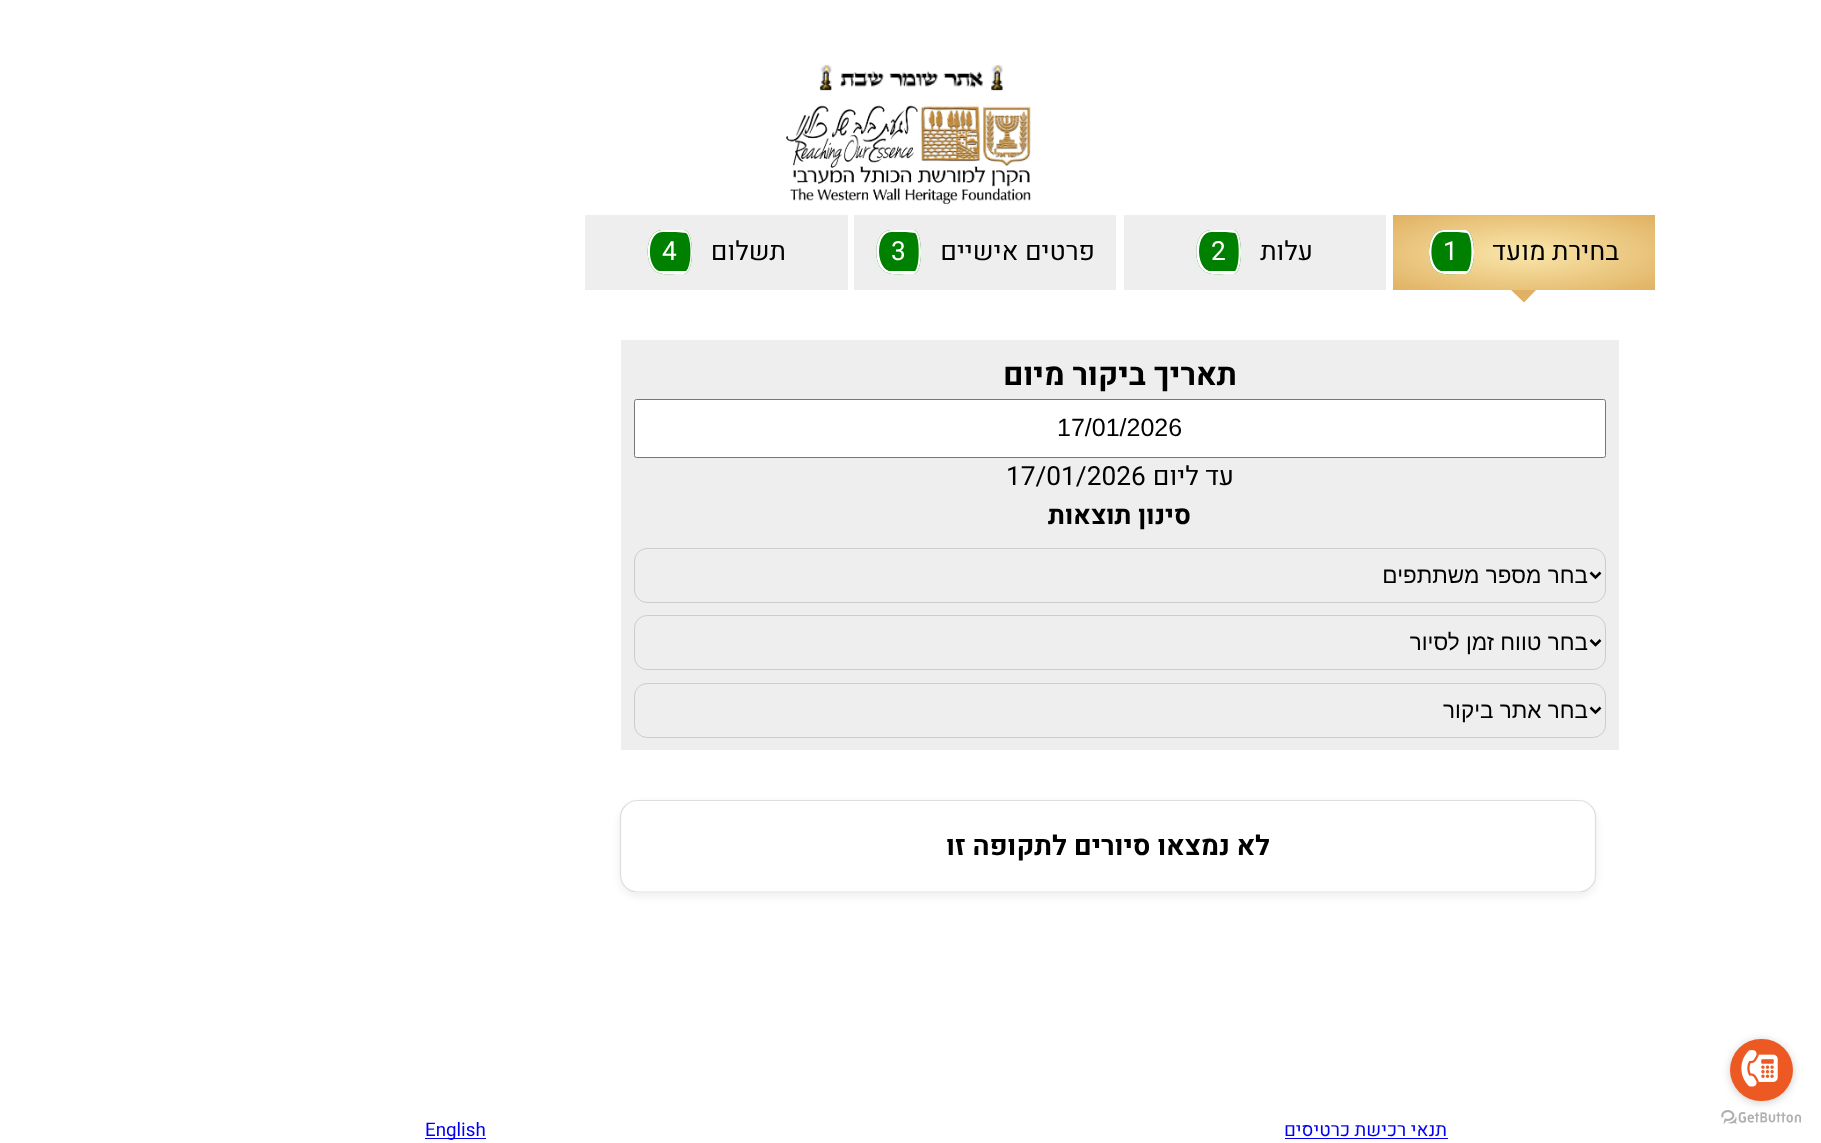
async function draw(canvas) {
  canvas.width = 1821
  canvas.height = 1143
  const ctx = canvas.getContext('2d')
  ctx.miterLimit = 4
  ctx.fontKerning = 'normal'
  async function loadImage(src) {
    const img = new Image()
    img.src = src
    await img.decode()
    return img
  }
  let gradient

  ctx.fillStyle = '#fff'
  ctx.fillRect(0, 0, 1821, 1143)
  ctx.drawImage(await loadImage('image1.png'), 1721, 1110, 80, 14)
  ctx.fillStyle = '#88888866'
  ctx.filter = 'blur(4.5px)'
  ctx.beginPath()
  ctx.roundRect(1730, 1040, 63, 63, 31.5)
  ctx.fill()
  ctx.filter = 'none'
  ctx.fillStyle = '#ec5923'
  ctx.beginPath()
  ctx.roundRect(1730, 1039, 63, 62, 31)
  ctx.fill()
  ctx.drawImage(await loadImage('image0.png'), 1741, 1050, 37, 37)
  ctx.drawImage(await loadImage('image2.png'), 819, 64, 184, 27)
  ctx.drawImage(await loadImage('image3.png'), 786, 105, 245, 99)
  gradient = ctx.createRadialGradient(1524, 887.89, 0, 1524, 887.89, 186)
  gradient.addColorStop(0, '#fae7ac')
  gradient.addColorStop(1, '#e0b162')
  ctx.fillStyle = gradient
  ctx.beginPath()
  ctx.rect(1393, 215, 262, 75)
  ctx.save()
  ctx.clip()
  ctx.scale(1, 53 / 186)
  ctx.fillRect(0, 0, 1821, 4012)
  ctx.restore()
  ctx.direction = 'rtl'
  ctx.font = '26.25px Heebo'
  ctx.fillStyle = '#000'
  ctx.fillText('בחירת מועד', 1619, 260)
  ctx.fillStyle = '#008000'
  ctx.beginPath()
  ctx.moveTo(1443, 230)
  ctx.lineTo(1458, 230)
  ctx.lineTo(1458, 274)
  ctx.bezierCurveTo(1453, 274, 1445, 275, 1440, 273)
  ctx.bezierCurveTo(1424, 268, 1426, 230, 1443, 230)
  ctx.closePath()
  ctx.fill()
  ctx.fillStyle = '#fff'
  ctx.beginPath()
  ctx.moveTo(1443, 230)
  ctx.lineTo(1458, 230)
  ctx.lineTo(1458, 274)
  ctx.bezierCurveTo(1453, 274, 1445, 275, 1440, 273)
  ctx.bezierCurveTo(1424, 268, 1426, 230, 1443, 230)
  ctx.closePath()
  ctx.moveTo(1443, 232)
  ctx.lineTo(1458, 232)
  ctx.lineTo(1458, 271)
  ctx.lineTo(1441, 271)
  ctx.bezierCurveTo(1427, 266, 1429, 232, 1443, 232)
  ctx.closePath()
  ctx.fill('evenodd')
  ctx.direction = 'ltr'
  ctx.fillText('1', 1443, 260)
  ctx.fillStyle = '#008000'
  ctx.beginPath()
  ctx.moveTo(1458, 230)
  ctx.lineTo(1466, 230)
  ctx.bezierCurveTo(1470, 230, 1474, 240, 1474, 252)
  ctx.bezierCurveTo(1474, 264, 1470, 274, 1466, 274)
  ctx.lineTo(1458, 274)
  ctx.closePath()
  ctx.fill()
  ctx.fillStyle = '#fff'
  ctx.beginPath()
  ctx.moveTo(1458, 230)
  ctx.lineTo(1466, 230)
  ctx.bezierCurveTo(1470, 230, 1474, 240, 1474, 252)
  ctx.bezierCurveTo(1474, 264, 1470, 274, 1466, 274)
  ctx.lineTo(1458, 274)
  ctx.closePath()
  ctx.moveTo(1458, 232)
  ctx.lineTo(1467, 233)
  ctx.bezierCurveTo(1473, 237, 1473, 267, 1467, 271)
  ctx.lineTo(1458, 271)
  ctx.closePath()
  ctx.fill('evenodd')
  ctx.fillStyle = '#e0b162'
  ctx.beginPath()
  ctx.moveTo(1511, 290)
  ctx.lineTo(1536, 290)
  ctx.lineTo(1524, 302.5)
  ctx.closePath()
  ctx.fill()
  ctx.fillStyle = '#eee'
  ctx.fillRect(1124, 215, 262, 75)
  ctx.direction = 'rtl'
  ctx.fillStyle = '#000'
  ctx.fillText('עלות', 1313, 260)
  ctx.fillStyle = '#008000'
  ctx.beginPath()
  ctx.moveTo(1211, 230)
  ctx.lineTo(1226, 230)
  ctx.lineTo(1226, 274)
  ctx.bezierCurveTo(1221, 274, 1213, 275, 1208, 273)
  ctx.bezierCurveTo(1191, 268, 1193, 230, 1211, 230)
  ctx.closePath()
  ctx.fill()
  ctx.fillStyle = '#fff'
  ctx.beginPath()
  ctx.moveTo(1211, 230)
  ctx.lineTo(1226, 230)
  ctx.lineTo(1226, 274)
  ctx.bezierCurveTo(1221, 274, 1213, 275, 1208, 273)
  ctx.bezierCurveTo(1191, 268, 1193, 230, 1211, 230)
  ctx.closePath()
  ctx.moveTo(1211, 232)
  ctx.lineTo(1226, 232)
  ctx.lineTo(1226, 271)
  ctx.lineTo(1209, 271)
  ctx.bezierCurveTo(1195, 266, 1196, 232, 1211, 232)
  ctx.closePath()
  ctx.fill('evenodd')
  ctx.direction = 'ltr'
  ctx.fillText('2', 1211, 260)
  ctx.fillStyle = '#008000'
  ctx.beginPath()
  ctx.moveTo(1226, 230)
  ctx.lineTo(1234, 230)
  ctx.bezierCurveTo(1238, 230, 1241, 240, 1241, 252)
  ctx.bezierCurveTo(1241, 264, 1238, 274, 1234, 274)
  ctx.lineTo(1226, 274)
  ctx.closePath()
  ctx.fill()
  ctx.fillStyle = '#fff'
  ctx.beginPath()
  ctx.moveTo(1226, 230)
  ctx.lineTo(1234, 230)
  ctx.bezierCurveTo(1238, 230, 1241, 240, 1241, 252)
  ctx.bezierCurveTo(1241, 264, 1238, 274, 1234, 274)
  ctx.lineTo(1226, 274)
  ctx.closePath()
  ctx.moveTo(1226, 232)
  ctx.lineTo(1235, 233)
  ctx.bezierCurveTo(1240, 237, 1240, 267, 1235, 271)
  ctx.lineTo(1226, 271)
  ctx.closePath()
  ctx.fill('evenodd')
  ctx.fillStyle = '#eee'
  ctx.fillRect(854, 215, 262, 75)
  ctx.direction = 'rtl'
  ctx.fillStyle = '#000'
  ctx.fillText('פרטים אישיים', 1095, 260)
  ctx.fillStyle = '#008000'
  ctx.beginPath()
  ctx.moveTo(891, 230)
  ctx.lineTo(906, 230)
  ctx.lineTo(906, 274)
  ctx.bezierCurveTo(901, 274, 893, 275, 888, 273)
  ctx.bezierCurveTo(871, 268, 873, 230, 891, 230)
  ctx.closePath()
  ctx.fill()
  ctx.fillStyle = '#fff'
  ctx.beginPath()
  ctx.moveTo(891, 230)
  ctx.lineTo(906, 230)
  ctx.lineTo(906, 274)
  ctx.bezierCurveTo(901, 274, 893, 275, 888, 273)
  ctx.bezierCurveTo(871, 268, 873, 230, 891, 230)
  ctx.closePath()
  ctx.moveTo(891, 232)
  ctx.lineTo(906, 232)
  ctx.lineTo(906, 271)
  ctx.lineTo(889, 271)
  ctx.bezierCurveTo(875, 266, 876, 232, 891, 232)
  ctx.closePath()
  ctx.fill('evenodd')
  ctx.direction = 'ltr'
  ctx.fillText('3', 891, 260)
  ctx.fillStyle = '#008000'
  ctx.beginPath()
  ctx.moveTo(906, 230)
  ctx.lineTo(914, 230)
  ctx.bezierCurveTo(918, 230, 921, 240, 921, 252)
  ctx.bezierCurveTo(921, 264, 918, 274, 914, 274)
  ctx.lineTo(906, 274)
  ctx.closePath()
  ctx.fill()
  ctx.fillStyle = '#fff'
  ctx.beginPath()
  ctx.moveTo(906, 230)
  ctx.lineTo(914, 230)
  ctx.bezierCurveTo(918, 230, 921, 240, 921, 252)
  ctx.bezierCurveTo(921, 264, 918, 274, 914, 274)
  ctx.lineTo(906, 274)
  ctx.closePath()
  ctx.moveTo(906, 232)
  ctx.lineTo(915, 233)
  ctx.bezierCurveTo(920, 237, 920, 267, 915, 271)
  ctx.lineTo(906, 271)
  ctx.closePath()
  ctx.fill('evenodd')
  ctx.fillStyle = '#eee'
  ctx.fillRect(585, 215, 263, 75)
  ctx.direction = 'rtl'
  ctx.fillStyle = '#000'
  ctx.fillText('תשלום', 786, 260)
  ctx.fillStyle = '#008000'
  ctx.beginPath()
  ctx.moveTo(662, 230)
  ctx.lineTo(676, 230)
  ctx.lineTo(676, 274)
  ctx.bezierCurveTo(671, 274, 664, 275, 659, 273)
  ctx.bezierCurveTo(643, 268, 644, 230, 662, 230)
  ctx.closePath()
  ctx.fill()
  ctx.fillStyle = '#fff'
  ctx.beginPath()
  ctx.moveTo(662, 230)
  ctx.lineTo(676, 230)
  ctx.lineTo(676, 274)
  ctx.bezierCurveTo(671, 274, 664, 275, 659, 273)
  ctx.bezierCurveTo(643, 268, 644, 230, 662, 230)
  ctx.closePath()
  ctx.moveTo(662, 232)
  ctx.lineTo(676, 232)
  ctx.lineTo(676, 271)
  ctx.lineTo(659, 271)
  ctx.bezierCurveTo(646, 266, 647, 232, 662, 232)
  ctx.closePath()
  ctx.fill('evenodd')
  ctx.fillStyle = '#008000'
  ctx.beginPath()
  ctx.moveTo(676, 230)
  ctx.lineTo(684, 230)
  ctx.bezierCurveTo(689, 230, 692, 240, 692, 252)
  ctx.bezierCurveTo(692, 264, 689, 274, 684, 274)
  ctx.lineTo(676, 274)
  ctx.closePath()
  ctx.fill()
  ctx.fillStyle = '#fff'
  ctx.beginPath()
  ctx.moveTo(676, 230)
  ctx.lineTo(684, 230)
  ctx.bezierCurveTo(689, 230, 692, 240, 692, 252)
  ctx.bezierCurveTo(692, 264, 689, 274, 684, 274)
  ctx.lineTo(676, 274)
  ctx.closePath()
  ctx.moveTo(676, 232)
  ctx.lineTo(686, 233)
  ctx.bezierCurveTo(692, 237, 692, 267, 686, 271)
  ctx.lineTo(676, 271)
  ctx.closePath()
  ctx.fill('evenodd')
  ctx.direction = 'ltr'
  ctx.fillText('4', 662, 260)
  ctx.fillStyle = '#eee'
  ctx.fillRect(621, 340, 998, 410)
  ctx.direction = 'rtl'
  ctx.font = 'bold 31.25px Heebo'
  ctx.fillStyle = '#000'
  ctx.fillText('תאריך ביקור מיום', 1237, 385)
  ctx.fillStyle = '#fff'
  ctx.beginPath()
  ctx.roundRect(634.5, 399.5, 971, 58, 2)
  ctx.fill()
  ctx.strokeStyle = '#767676'
  ctx.stroke()
  ctx.direction = 'ltr'
  ctx.font = '25px Liberation Sans'
  ctx.fillStyle = '#000'
  ctx.fillText('17/01/2026', 1057, 436)
  ctx.direction = 'rtl'
  ctx.font = '26.25px Heebo'
  ctx.fillText('עד ליום', 1234, 485)
  ctx.direction = 'ltr'
  ctx.fillText('17/01/2026', 1006, 485)
  ctx.direction = 'rtl'
  ctx.font = 'bold 26.25px Heebo'
  ctx.fillText('סינון תוצאות', 1191, 524)
  ctx.beginPath()
  ctx.roundRect(634.5, 548.5, 971, 54, 12.5)
  ctx.strokeStyle = '#ccc'
  ctx.stroke()
  ctx.beginPath()
  ctx.moveTo(1590.5, 572.5)
  ctx.lineTo(1595.5, 577.5)
  ctx.lineTo(1600.5, 572.5)
  ctx.strokeStyle = '#000'
  ctx.lineWidth = 2.5
  ctx.stroke()
  ctx.font = '22.5px Liberation Sans'
  ctx.fillText('בחר מספר משתתפים', 1588, 583)
  ctx.beginPath()
  ctx.roundRect(634.5, 615.5, 971, 54, 12.5)
  ctx.strokeStyle = '#ccc'
  ctx.lineWidth = 1
  ctx.stroke()
  ctx.beginPath()
  ctx.moveTo(1590.5, 640)
  ctx.lineTo(1595.5, 645)
  ctx.lineTo(1600.5, 640)
  ctx.strokeStyle = '#000'
  ctx.lineWidth = 2.5
  ctx.stroke()
  ctx.fillText('בחר טווח זמן לסיור', 1588, 650)
  ctx.beginPath()
  ctx.roundRect(634.5, 683.5, 971, 54, 12.5)
  ctx.strokeStyle = '#ccc'
  ctx.lineWidth = 1
  ctx.stroke()
  ctx.beginPath()
  ctx.moveTo(1590.5, 707.5)
  ctx.lineTo(1595.5, 712.5)
  ctx.lineTo(1600.5, 707.5)
  ctx.strokeStyle = '#000'
  ctx.lineWidth = 2.5
  ctx.stroke()
  ctx.fillText('בחר אתר ביקור', 1588, 718)
  ctx.fillStyle = '#00000012'
  ctx.filter = 'blur(4px)'
  ctx.beginPath()
  ctx.roundRect(620, 804, 976, 92, 18)
  ctx.fill()
  ctx.filter = 'none'
  ctx.fillStyle = '#fff'
  ctx.beginPath()
  ctx.roundRect(620, 800, 976, 93, 18)
  ctx.fill()
  ctx.beginPath()
  ctx.moveTo(625.5, 805.5)
  ctx.bezierCurveTo(628.5, 802.5, 633, 800.5, 637.5, 800.5)
  ctx.lineTo(1579, 800.5)
  ctx.bezierCurveTo(1583, 800.5, 1587.5, 802.5, 1590.5, 805.5)
  ctx.strokeStyle = '#dfdfdf'
  ctx.lineWidth = 1.2
  ctx.stroke()
  ctx.beginPath()
  ctx.moveTo(1590.5, 805.5)
  ctx.bezierCurveTo(1594, 808.5, 1595.5, 813, 1595.5, 817.5)
  ctx.lineTo(1595.5, 875)
  ctx.bezierCurveTo(1595.5, 879.5, 1594, 884, 1590.5, 887)
  ctx.strokeStyle = '#ddd'
  ctx.stroke()
  ctx.beginPath()
  ctx.moveTo(1590.5, 887)
  ctx.bezierCurveTo(1587.5, 890, 1583, 892, 1579, 892)
  ctx.lineTo(637.5, 892)
  ctx.bezierCurveTo(633, 892, 628.5, 890, 625.5, 887)
  ctx.strokeStyle = '#dfdfdf'
  ctx.stroke()
  ctx.beginPath()
  ctx.moveTo(625.5, 887)
  ctx.bezierCurveTo(622.5, 884, 620.5, 879.5, 620.5, 875)
  ctx.lineTo(620.5, 817.5)
  ctx.bezierCurveTo(620.5, 813, 622.5, 808.5, 625.5, 805.5)
  ctx.strokeStyle = '#ddd'
  ctx.stroke()
  ctx.font = 'bold 27.5px Heebo'
  ctx.fillStyle = '#000'
  ctx.fillText('לא נמצאו סיורים לתקופה זו', 1270, 855)
  ctx.font = '18.75px Heebo'
  ctx.fillStyle = '#00e'
  ctx.fillText('תנאי רכישת כרטיסים', 1447, 1136)
  ctx.fillRect(1285, 1138, 163, 1)
  ctx.fillRect(425, 1138, 61, 1)
  ctx.direction = 'ltr'
  ctx.fillText('English', 425, 1136)
}

draw(document.querySelector('canvas'))
